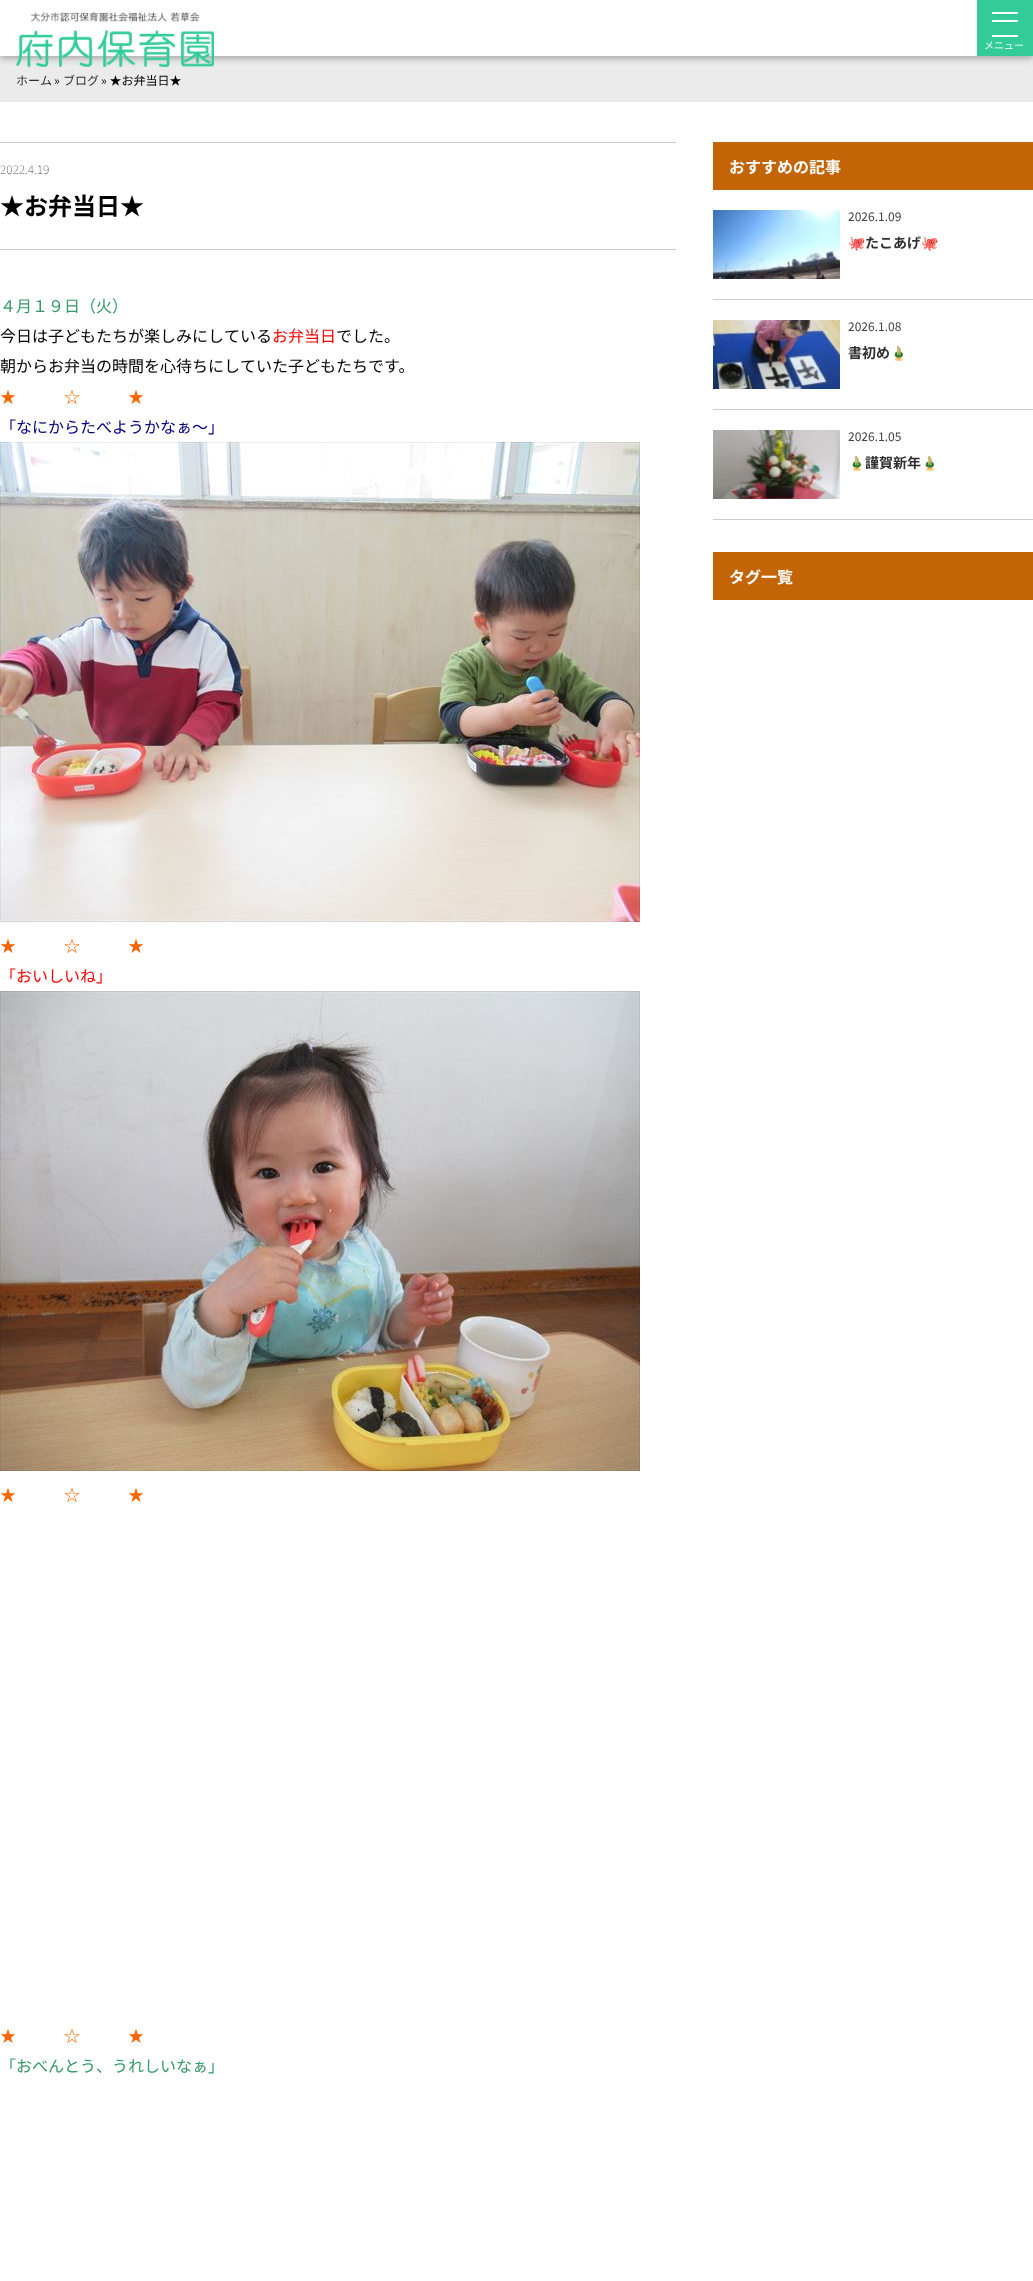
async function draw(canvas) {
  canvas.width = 1033
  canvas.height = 2281
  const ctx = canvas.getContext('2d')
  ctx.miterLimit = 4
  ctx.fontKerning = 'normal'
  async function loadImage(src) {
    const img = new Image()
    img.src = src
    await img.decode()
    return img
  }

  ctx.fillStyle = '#fff'
  ctx.fillRect(0, 0, 1033, 2281)
  ctx.fillStyle = '#ebebeb'
  ctx.fillRect(0, 56, 1033, 46)
  ctx.save()
  ctx.beginPath()
  ctx.rect(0, 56, 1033, 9)
  ctx.clip()
  ctx.fillStyle = '#6464644d'
  ctx.filter = 'blur(5px)'
  ctx.beginPath()
  ctx.rect(0, 2, 1033, 56)
  ctx.fill()
  ctx.filter = 'none'
  ctx.restore()
  ctx.save()
  ctx.beginPath()
  ctx.rect(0, 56, 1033, 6)
  ctx.clip()
  ctx.fillStyle = '#6464644d'
  ctx.filter = 'blur(2.5px)'
  ctx.beginPath()
  ctx.rect(0, 2, 1033, 56)
  ctx.fill()
  ctx.filter = 'none'
  ctx.restore()
  ctx.drawImage(await loadImage('image0.png'), 16, 12, 198, 55)
  ctx.fillStyle = '#3c9'
  ctx.fillRect(977, 0, 56, 56)
  ctx.fillStyle = '#fff'
  ctx.fillRect(992, 20, 26, 2)
  ctx.fillRect(992, 12, 26, 2)
  ctx.fillRect(992, 35, 26, 2)
  ctx.font = '10px Noto Sans JP'
  ctx.fillText('メニュー', 984, 49)
  ctx.font = '12px Noto Sans JP'
  ctx.fillStyle = '#2e2e2e'
  ctx.fillText('ホーム', 16, 85)
  ctx.fillStyle = '#000'
  ctx.fillText('»', 54, 85)
  ctx.fillStyle = '#2e2e2e'
  ctx.fillText('ブログ', 63, 85)
  ctx.fillStyle = '#000'
  ctx.fillText('» ★お弁当日★', 101, 85)
  ctx.fillStyle = '#ccc'
  ctx.fillRect(0, 142, 676, 1)
  ctx.fillRect(0, 249, 676, 1)
  ctx.font = '100 12px Noto Sans JP'
  ctx.fillStyle = '#444'
  ctx.fillText('2022.4.19', 0, 174)
  ctx.font = 'bold 24px Noto Sans JP'
  ctx.fillStyle = '#000'
  ctx.fillText('★お弁当日★', 0, 215)
  ctx.font = '16px Noto Sans JP'
  ctx.fillStyle = '#396'
  ctx.fillText('４月１９日（火）', 0, 312)
  ctx.fillStyle = '#000'
  ctx.fillText('今日は子どもたちが楽しみにしている', 0, 342)
  ctx.fillStyle = '#f00'
  ctx.fillText('お弁当日', 272, 342)
  ctx.fillStyle = '#000'
  ctx.fillText('でした。', 336, 342)
  ctx.fillText('朝からお弁当の時間を心待ちにしていた子どもたちです。', 0, 372)
  ctx.fillStyle = '#f60'
  ctx.fillText('★　　　☆　　　★', 0, 403)
  ctx.fillStyle = '#000080'
  ctx.fillText('「なにからたべようかなぁ～」', 0, 433)
  ctx.drawImage(await loadImage('image1.png'), 0, 442, 640, 480)
  ctx.fillStyle = '#f60'
  ctx.fillText('★　　　☆　　　★', 0, 952)
  ctx.fillStyle = '#f00'
  ctx.fillText('「おいしいね」', 0, 982)
  ctx.drawImage(await loadImage('image2.png'), 0, 991, 640, 480)
  ctx.fillStyle = '#f60'
  ctx.fillText('★　　　☆　　　★', 0, 1501)
  ctx.fillText('★　　　☆　　　★', 0, 2042)
  ctx.fillStyle = '#396'
  ctx.fillText('「おべんとう、うれしいなぁ」', 0, 2072)
  ctx.fillStyle = '#c36507'
  ctx.fillRect(713, 142, 320, 48)
  ctx.font = 'bold 16px Noto Sans JP'
  ctx.fillStyle = '#fff'
  ctx.fillText('おすすめの記事', 729, 173)
  ctx.fillStyle = '#ccc'
  ctx.fillRect(713, 299, 320, 1)
  ctx.drawImage(await loadImage('image3.png'), 713, 210, 127, 69)
  ctx.font = '12px Noto Sans JP'
  ctx.fillStyle = '#444'
  ctx.fillText('2026.1.09', 848, 221)
  ctx.font = 'bold 14px Noto Color Emoji'
  ctx.fillStyle = '#2e2e2e'
  ctx.fillText('🐙', 848, 248)
  ctx.font = 'bold 14px Noto Sans JP'
  ctx.fillText('たこあげ', 865, 248)
  ctx.font = 'bold 14px Noto Color Emoji'
  ctx.fillText('🐙', 921, 248)
  ctx.fillStyle = '#ccc'
  ctx.fillRect(713, 409, 320, 1)
  ctx.drawImage(await loadImage('image4.png'), 713, 320, 127, 69)
  ctx.font = '12px Noto Sans JP'
  ctx.fillStyle = '#444'
  ctx.fillText('2026.1.08', 848, 331)
  ctx.font = 'bold 14px Noto Sans JP'
  ctx.fillStyle = '#2e2e2e'
  ctx.fillText('書初め', 848, 358)
  ctx.font = 'bold 14px Noto Color Emoji'
  ctx.fillText('🎍', 890, 358)
  ctx.fillStyle = '#ccc'
  ctx.fillRect(713, 519, 320, 1)
  ctx.drawImage(await loadImage('image5.png'), 713, 430, 127, 69)
  ctx.font = '12px Noto Sans JP'
  ctx.fillStyle = '#444'
  ctx.fillText('2026.1.05', 848, 441)
  ctx.font = 'bold 14px Noto Color Emoji'
  ctx.fillStyle = '#2e2e2e'
  ctx.fillText('🎍', 848, 468)
  ctx.font = 'bold 14px Noto Sans JP'
  ctx.fillText('謹賀新年', 865, 468)
  ctx.font = 'bold 14px Noto Color Emoji'
  ctx.fillText('🎍', 921, 468)
  ctx.fillStyle = '#c36507'
  ctx.fillRect(713, 552, 320, 48)
  ctx.font = 'bold 16px Noto Sans JP'
  ctx.fillStyle = '#fff'
  ctx.fillText('タグ一覧', 729, 583)
}

draw(document.querySelector('canvas'))
